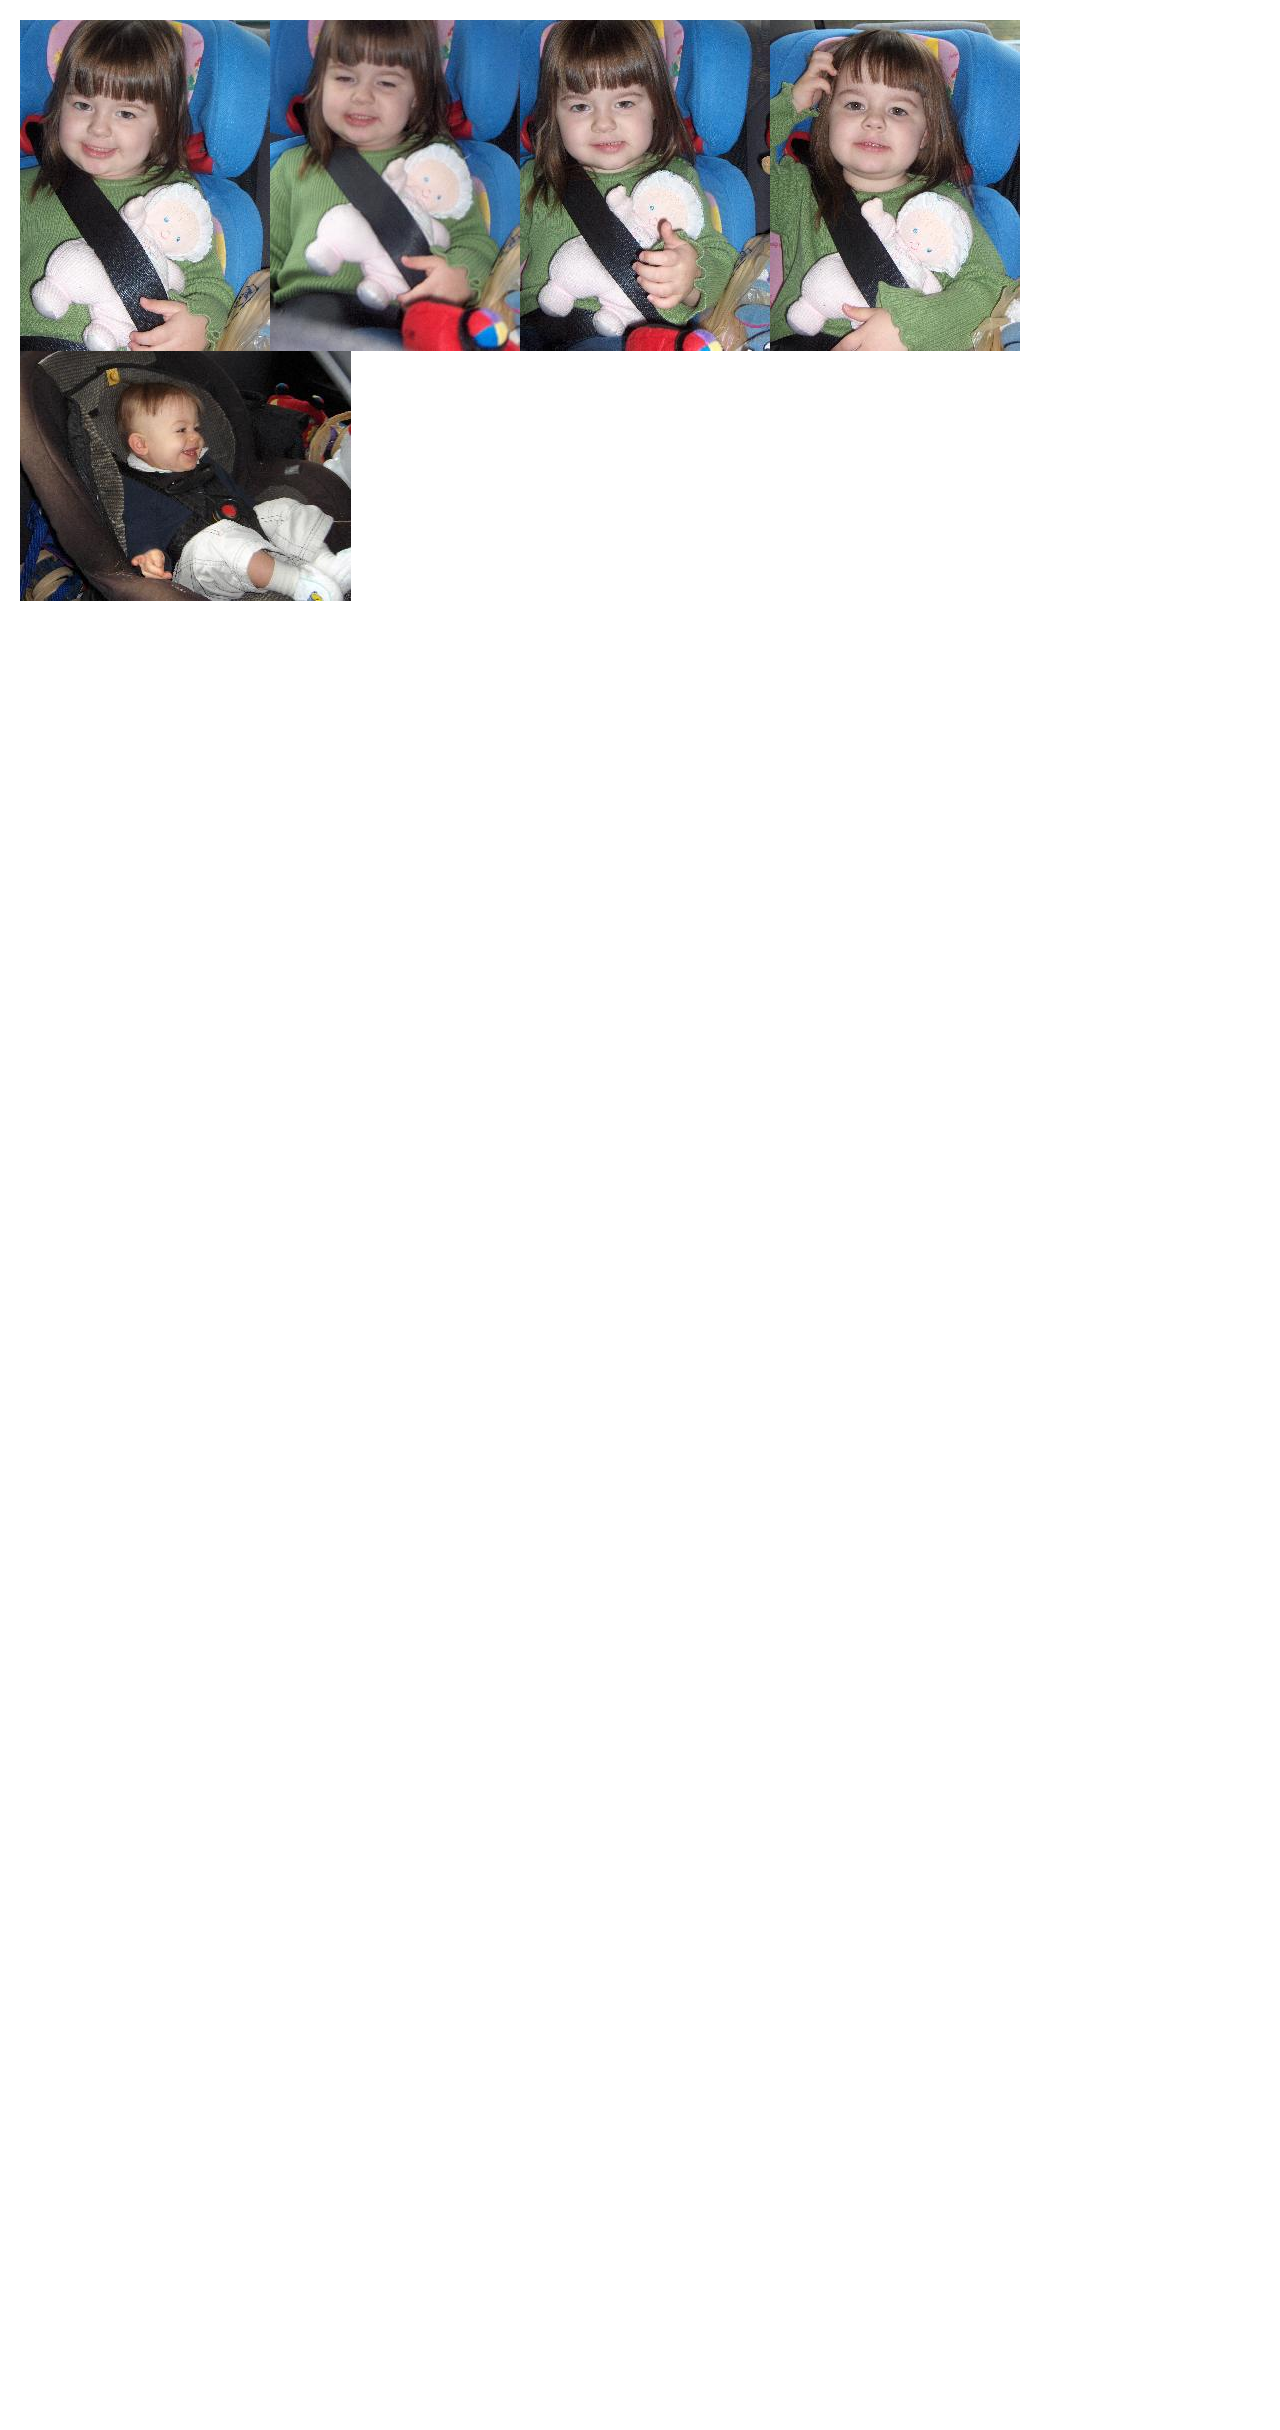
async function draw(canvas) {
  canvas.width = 1280
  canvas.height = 2430
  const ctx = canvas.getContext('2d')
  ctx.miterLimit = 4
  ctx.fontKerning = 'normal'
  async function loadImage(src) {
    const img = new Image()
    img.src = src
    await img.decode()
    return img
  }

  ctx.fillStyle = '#fff'
  ctx.fillRect(0, 0, 1280, 2430)
  ctx.drawImage(await loadImage('image0.png'), 20, 20, 250, 331)
  ctx.drawImage(await loadImage('image1.png'), 270, 20, 250, 331)
  ctx.drawImage(await loadImage('image2.png'), 520, 20, 250, 331)
  ctx.drawImage(await loadImage('image3.png'), 770, 20, 250, 331)
  ctx.drawImage(await loadImage('image4.png'), 20, 351, 331, 250)
}

draw(document.querySelector('canvas'))
